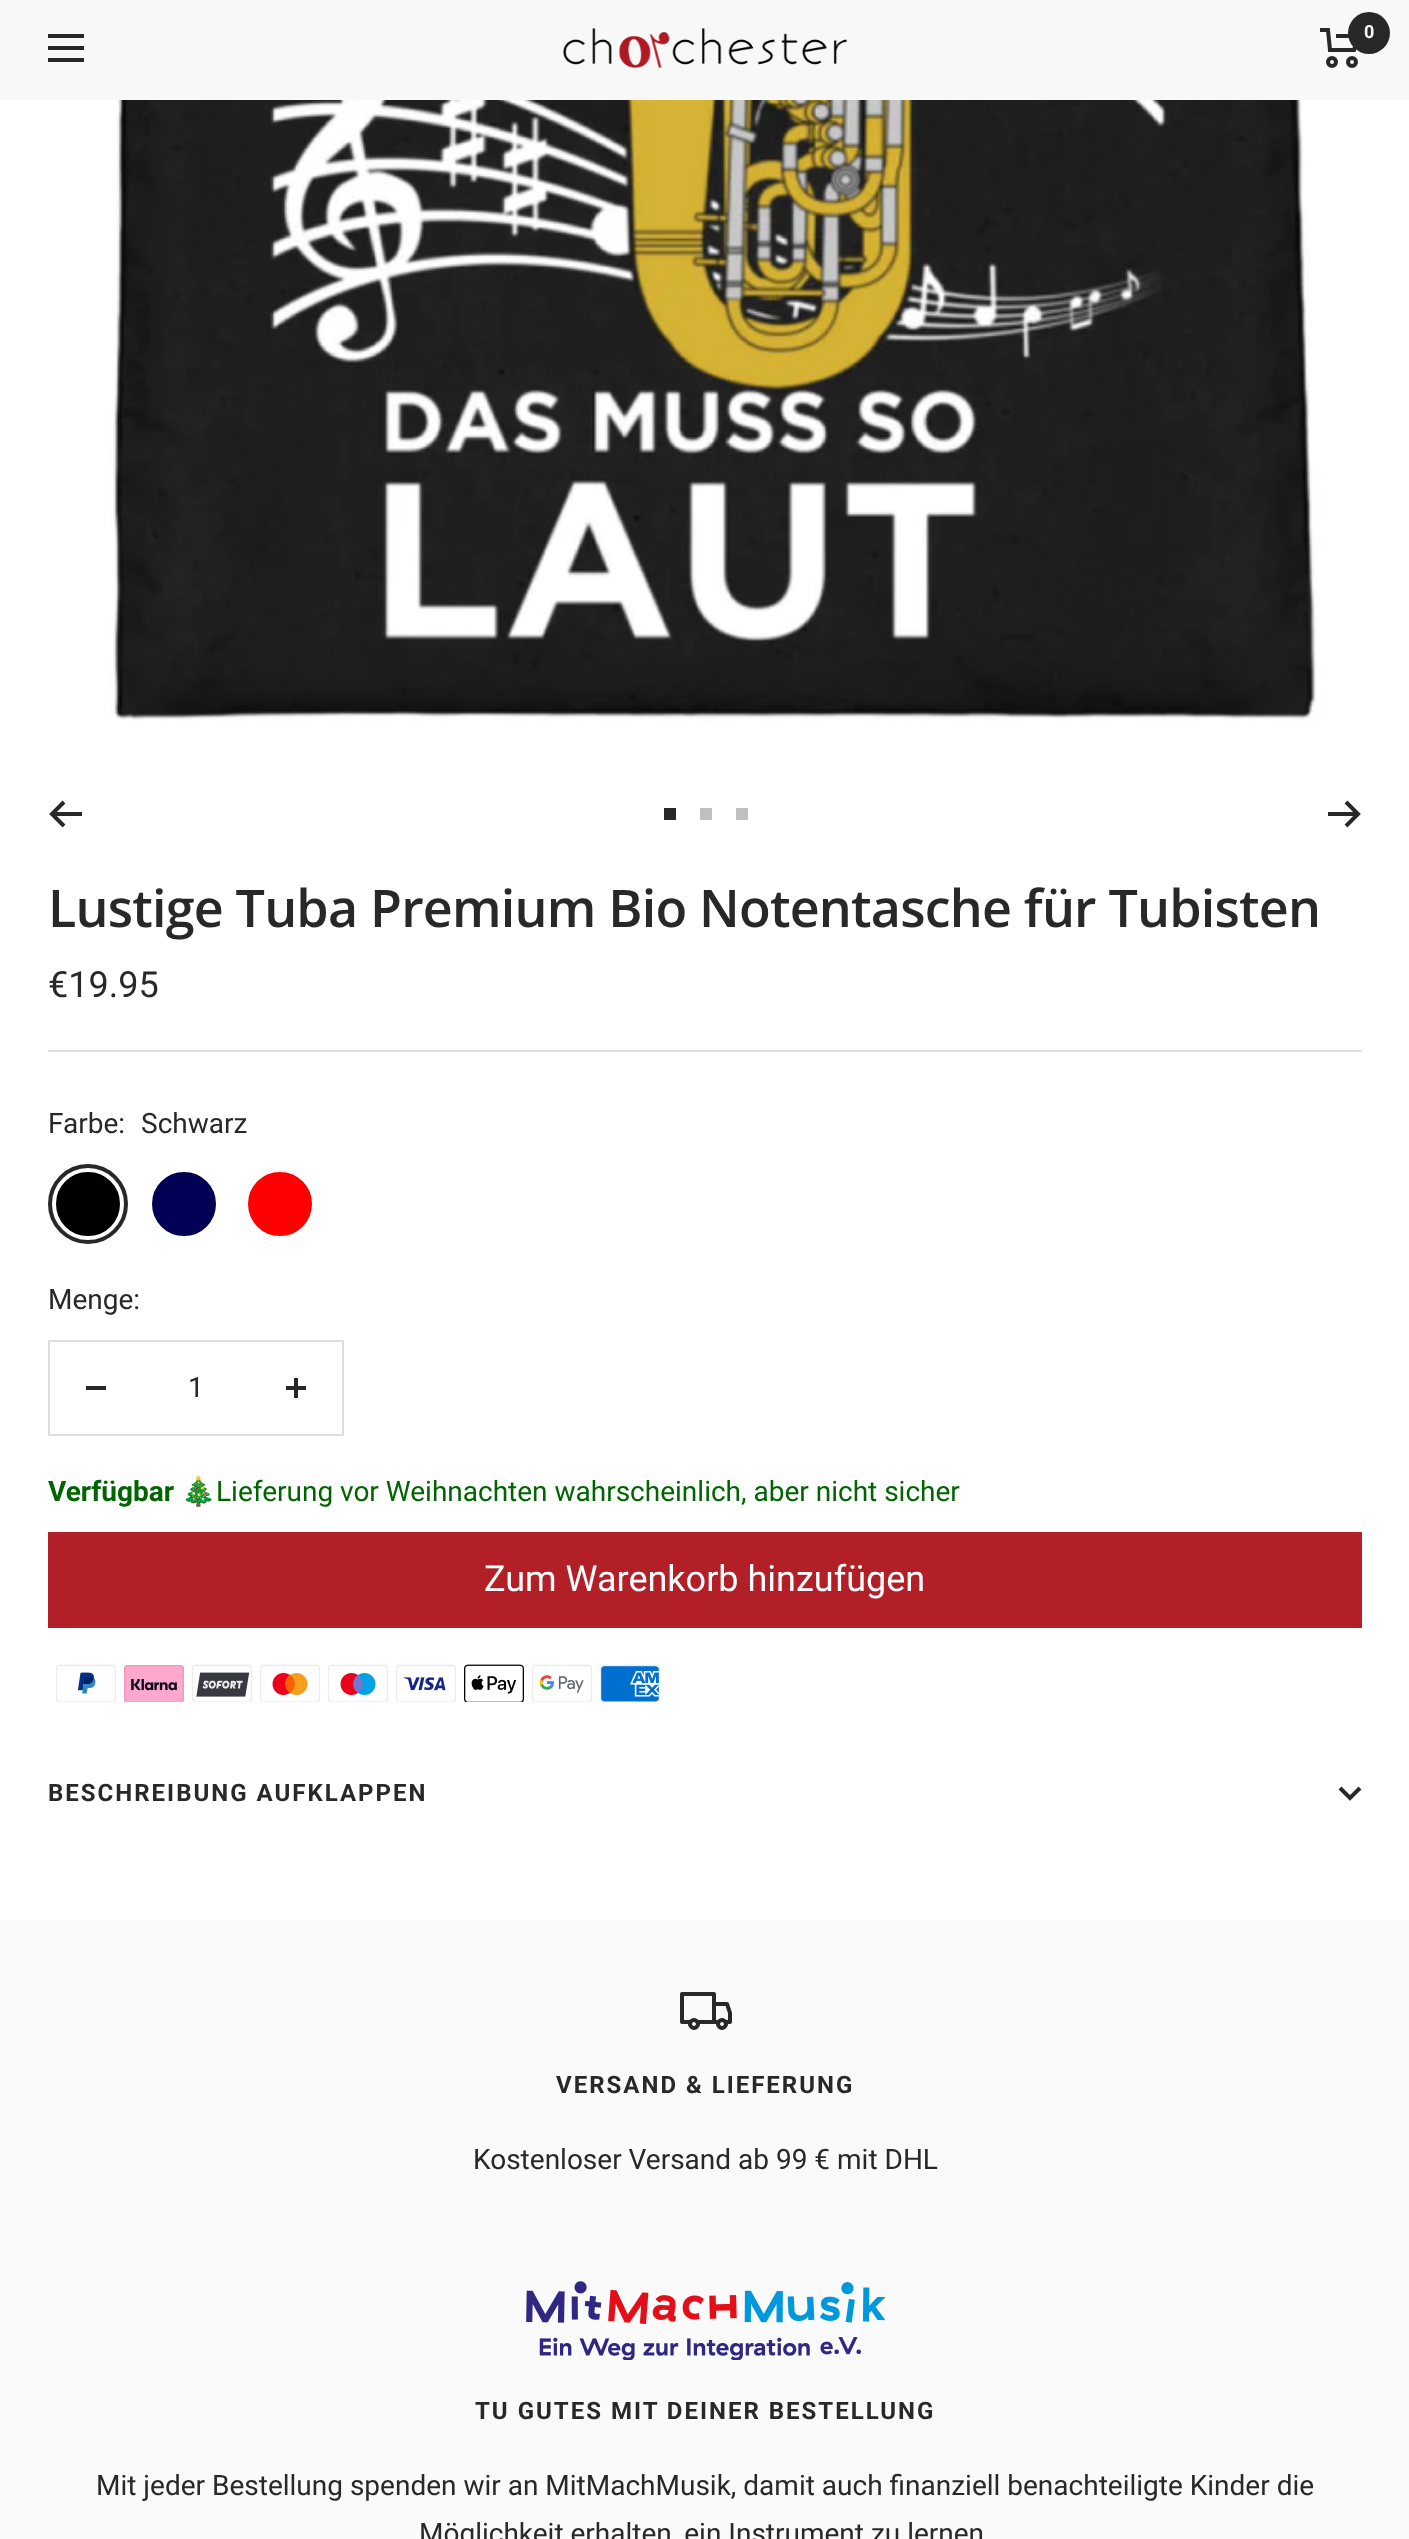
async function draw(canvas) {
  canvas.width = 1409
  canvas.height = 2539
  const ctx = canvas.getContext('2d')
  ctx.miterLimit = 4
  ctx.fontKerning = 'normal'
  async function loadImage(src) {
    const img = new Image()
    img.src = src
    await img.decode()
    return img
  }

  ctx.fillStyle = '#fff'
  ctx.fillRect(0, 0, 1409, 2539)
  ctx.fillStyle = '#f8f8f8'
  ctx.fillRect(0, 0, 1409, 100)
  ctx.beginPath()
  ctx.moveTo(48, 36)
  ctx.lineTo(84, 36)
  ctx.moveTo(48, 60)
  ctx.lineTo(84, 60)
  ctx.closePath()
  ctx.moveTo(48, 48)
  ctx.lineTo(84, 48)
  ctx.closePath()
  ctx.strokeStyle = '#282828'
  ctx.lineWidth = 4
  ctx.stroke()
  ctx.drawImage(await loadImage('image0.png'), 563, 28, 285, 40)
  ctx.beginPath()
  ctx.moveTo(1320, 30)
  ctx.lineTo(1328, 30)
  ctx.lineTo(1330, 50)
  ctx.lineTo(1354, 50)
  ctx.lineTo(1358, 36)
  ctx.lineTo(1336, 36)
  ctx.stroke()
  ctx.beginPath()
  ctx.arc(1332, 62, 4, 0, 2 * Math.PI)
  ctx.stroke()
  ctx.beginPath()
  ctx.arc(1352, 62, 4, 0, 2 * Math.PI)
  ctx.stroke()
  ctx.fillStyle = '#282828'
  ctx.beginPath()
  ctx.arc(1369, 33, 21, 0, 2 * Math.PI)
  ctx.fill()
  ctx.font = 'bold 18px Roboto'
  ctx.fillStyle = '#f8f8f8'
  ctx.fillText('0', 1364, 38)
  ctx.drawImage(await loadImage('image1.png'), 48, 100, 1314, 664)
  ctx.beginPath()
  ctx.moveTo(82, 814)
  ctx.lineTo(52, 814)
  ctx.moveTo(64, 802)
  ctx.lineTo(52, 814)
  ctx.lineTo(64, 826)
  ctx.stroke()
  ctx.fillStyle = '#282828'
  ctx.fillRect(664, 808, 12, 12)
  ctx.fillStyle = '#bfbfbf'
  ctx.fillRect(700, 808, 12, 12)
  ctx.fillRect(736, 808, 12, 12)
  ctx.beginPath()
  ctx.moveTo(1328, 814)
  ctx.lineTo(1358, 814)
  ctx.moveTo(1346, 802)
  ctx.lineTo(1358, 814)
  ctx.lineTo(1346, 826)
  ctx.stroke()
  ctx.fillStyle = '#dfdfdf'
  ctx.fillRect(48, 1050, 1314, 2)
  ctx.letterSpacing = '-0.8px'
  ctx.font = '600 52px Open Sans'
  ctx.fillStyle = '#282828'
  ctx.fillText('Lustige Tuba Premium Bio Notentasche für Tubisten', 48, 927)
  ctx.letterSpacing = '0px'
  ctx.font = '36px Roboto'
  ctx.fillText('€19.95', 48, 997)
  ctx.font = '28px Roboto'
  ctx.fillText('Farbe:', 48, 1133)
  ctx.fillText('Schwarz', 141, 1133)
  ctx.fillStyle = '#000'
  ctx.beginPath()
  ctx.arc(88, 1204, 37, 0, 2 * Math.PI)
  ctx.fill()
  ctx.strokeStyle = '#fff'
  ctx.lineWidth = 6
  ctx.stroke()
  ctx.beginPath()
  ctx.arc(88, 1204, 34, 0, 2 * Math.PI)
  ctx.lineWidth = 4
  ctx.stroke()
  ctx.beginPath()
  ctx.arc(88, 1204, 38, 0, 2 * Math.PI)
  ctx.strokeStyle = '#282828'
  ctx.stroke()
  ctx.fillStyle = '#005'
  ctx.beginPath()
  ctx.arc(184, 1204, 37, 0, 2 * Math.PI)
  ctx.fill()
  ctx.strokeStyle = '#fff'
  ctx.lineWidth = 6
  ctx.stroke()
  ctx.beginPath()
  ctx.arc(184, 1204, 34, 0, 2 * Math.PI)
  ctx.lineWidth = 4
  ctx.stroke()
  ctx.fillStyle = '#f00'
  ctx.beginPath()
  ctx.arc(280, 1204, 37, 0, 2 * Math.PI)
  ctx.fill()
  ctx.lineWidth = 6
  ctx.stroke()
  ctx.beginPath()
  ctx.arc(280, 1204, 34, 0, 2 * Math.PI)
  ctx.lineWidth = 4
  ctx.stroke()
  ctx.fillStyle = '#282828'
  ctx.fillText('Menge:', 48, 1309)
  ctx.strokeStyle = '#dfdfdf'
  ctx.lineWidth = 2
  ctx.strokeRect(49, 1341, 294, 94)
  ctx.fillRect(86, 1386, 20, 4)
  ctx.fillText('1', 188, 1397)
  ctx.drawImage(await loadImage('image2.png'), 286, 1378, 20, 20)
  ctx.font = 'bold 28px Roboto'
  ctx.fillStyle = '#006400'
  ctx.fillText('Verfügbar', 48, 1501)
  ctx.font = '28px Noto Color Emoji'
  ctx.fillText('🎄', 181, 1501)
  ctx.font = '28px Roboto'
  ctx.fillText('Lieferung vor Weihnachten wahrscheinlich, aber nicht sicher', 216, 1501)
  ctx.fillStyle = '#b31f27'
  ctx.fillRect(48, 1532, 1314, 96)
  ctx.font = '36px Roboto'
  ctx.fillStyle = '#fff'
  ctx.fillText('Zum Warenkorb hinzufügen', 484, 1591)
  ctx.drawImage(await loadImage('image3.png'), 56, 1664, 60, 38)
  ctx.drawImage(await loadImage('image4.png'), 124, 1665, 60, 37)
  ctx.drawImage(await loadImage('image5.png'), 192, 1664, 60, 38)
  ctx.drawImage(await loadImage('image6.png'), 260, 1664, 60, 38)
  ctx.drawImage(await loadImage('image7.png'), 328, 1664, 60, 38)
  ctx.drawImage(await loadImage('image8.png'), 396, 1664, 60, 38)
  ctx.drawImage(await loadImage('image9.png'), 464, 1664, 60, 38)
  ctx.drawImage(await loadImage('image10.png'), 532, 1664, 60, 38)
  ctx.drawImage(await loadImage('image11.png'), 600, 1664, 60, 38)
  ctx.letterSpacing = '2px'
  ctx.font = 'bold 24px Roboto'
  ctx.fillStyle = '#282828'
  ctx.fillText('BESCHREIBUNG AUFKLAPPEN', 48, 1801)
  ctx.beginPath()
  ctx.moveTo(1340, 1788)
  ctx.lineTo(1350, 1798)
  ctx.lineTo(1360, 1788)
  ctx.strokeStyle = '#282828'
  ctx.lineWidth = 4
  ctx.stroke()
  ctx.fillStyle = '#fafafa'
  ctx.fillRect(0, 1920, 1409, 619)
  ctx.drawImage(await loadImage('image12.png'), 680, 1992, 52, 38)
  ctx.fillStyle = '#282828'
  ctx.fillText('VERSAND & LIEFERUNG', 556, 2093)
  ctx.letterSpacing = '0px'
  ctx.font = '28px Roboto'
  ctx.fillText('Kostenloser Versand ab 99 € mit DHL', 473, 2169)
  ctx.drawImage(await loadImage('image13.png'), 526, 2281, 360, 79)
  ctx.letterSpacing = '2px'
  ctx.font = 'bold 24px Roboto'
  ctx.fillText('TU GUTES MIT DEINER BESTELLUNG', 475, 2419)
  ctx.letterSpacing = '0px'
  ctx.font = '28px Roboto'
  ctx.fillText('Mit jeder Bestellung spenden wir an MitMachMusik, damit auch finanziell benachteiligte Kinder die', 96, 2495)
  ctx.fillText('Möglichkeit erhalten, ein Instrument zu lernen', 419, 2543)
}

draw(document.querySelector('canvas'))
